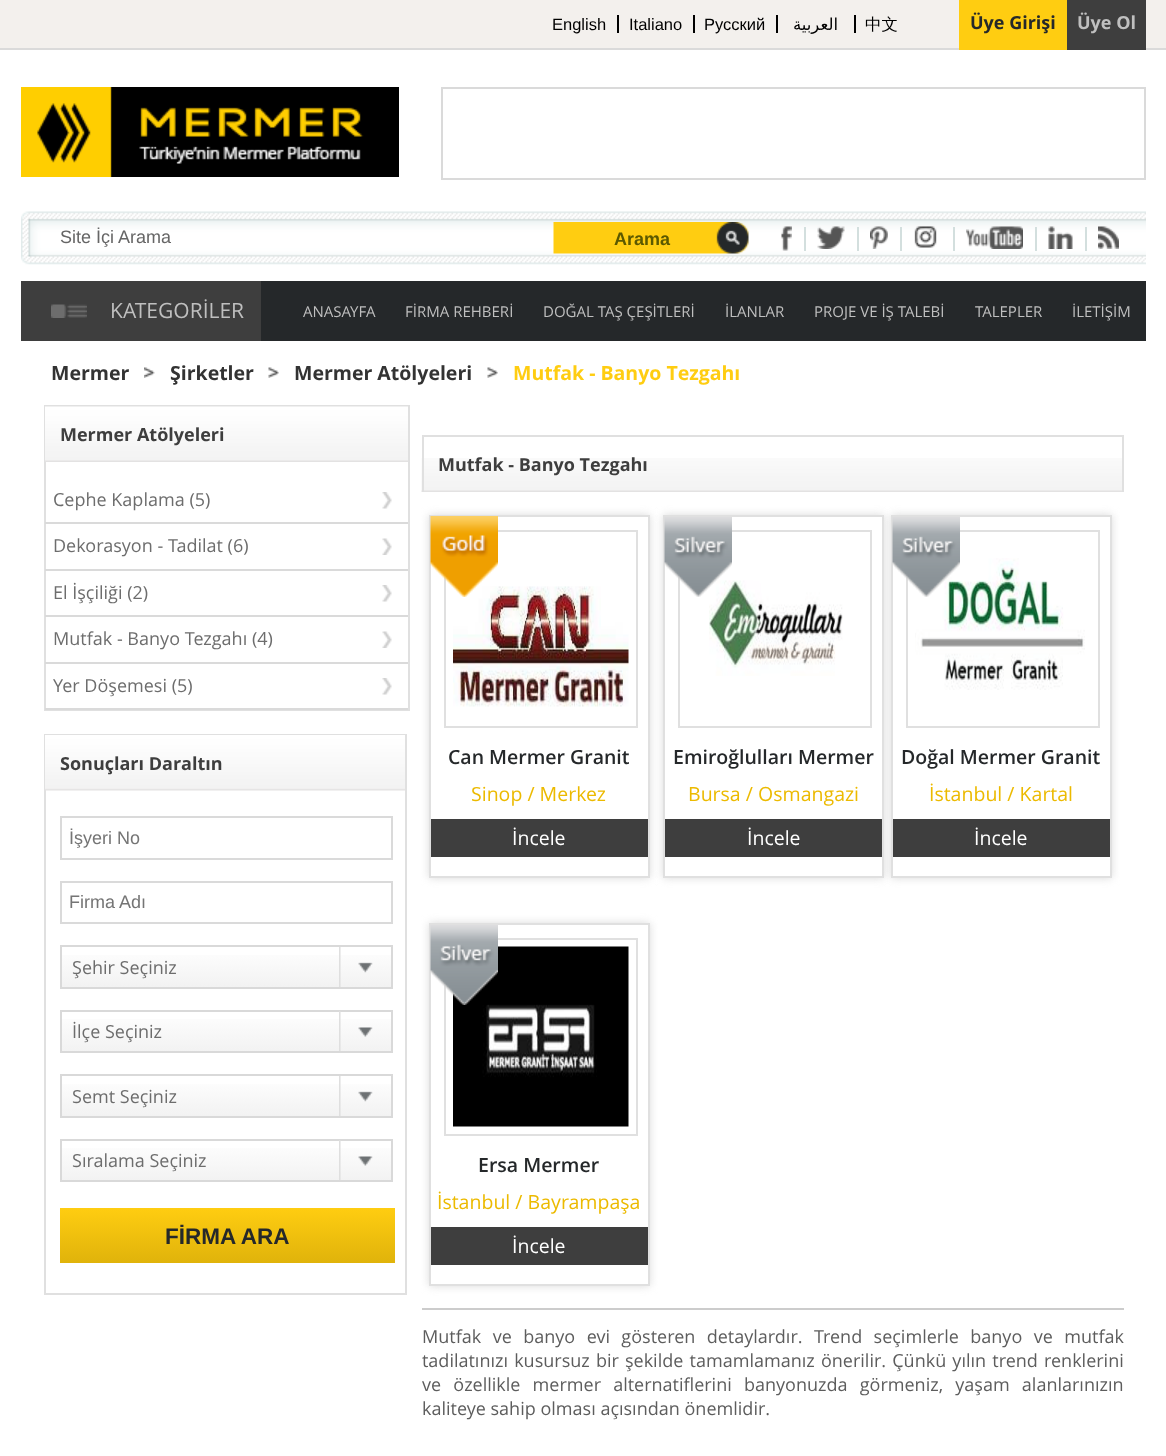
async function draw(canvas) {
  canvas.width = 1166
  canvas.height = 1456
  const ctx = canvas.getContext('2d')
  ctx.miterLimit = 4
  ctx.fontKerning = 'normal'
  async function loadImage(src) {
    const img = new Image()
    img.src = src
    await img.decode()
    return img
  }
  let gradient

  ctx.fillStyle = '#fff'
  ctx.fillRect(0, 0, 1166, 1456)
  ctx.fillStyle = '#f3f0ed'
  ctx.fillRect(0, 0, 1166, 48)
  ctx.fillStyle = '#dadada'
  ctx.fillRect(0, 48, 1166, 2)
  ctx.font = '16.5px Liberation Sans'
  ctx.fillStyle = '#000'
  ctx.fillText('English', 552, 30)
  ctx.fillRect(617, 15, 2, 18)
  ctx.fillText('Italiano', 629, 30)
  ctx.fillRect(693, 15, 2, 18)
  ctx.fillText('Pусский', 704, 30)
  ctx.fillRect(776, 15, 2, 18)
  ctx.direction = 'rtl'
  ctx.font = '16.5px DejaVu Sans'
  ctx.fillText('العربية', 838, 30)
  ctx.fillRect(854, 15, 2, 18)
  ctx.direction = 'ltr'
  ctx.font = '500 16.5px WenQuanYi Zen Hei'
  ctx.fillText('中文', 865, 30)
  ctx.fillStyle = '#ffcd11'
  ctx.fillRect(959, 0, 108, 50)
  ctx.font = 'bold 18px Open Sans'
  ctx.fillStyle = '#25282a'
  ctx.fillText('Üye Girişi', 970, 29)
  ctx.fillStyle = '#3e3e3e'
  ctx.fillRect(1067, 0, 79, 50)
  ctx.fillStyle = '#bfbfbf'
  ctx.fillText('Üye Ol', 1077, 29)
  ctx.drawImage(await loadImage('image0.png'), 21, 87, 378, 90)
  ctx.strokeStyle = '#dadada'
  ctx.lineWidth = 2
  ctx.strokeRect(442, 88, 703, 91)
  ctx.drawImage(await loadImage('image1.png'), 21, 211, 1125, 54)
  ctx.font = '18px Liberation Sans'
  ctx.fillStyle = '#666'
  ctx.fillText('Site İçi Arama', 60, 243)
  ctx.drawImage(await loadImage('image2.png'), 553, 222, 196, 32)
  ctx.font = 'bold 18px Liberation Sans'
  ctx.fillStyle = '#5b5900'
  ctx.fillText('Arama', 614, 245)
  ctx.drawImage(await loadImage('image3.png'), 781, 226, 11, 25)
  ctx.fillStyle = '#d3dfde'
  ctx.fillRect(804, 227, 2, 24)
  ctx.drawImage(await loadImage('image4.png'), 817, 226, 28, 23)
  ctx.fillRect(857, 227, 2, 24)
  ctx.drawImage(await loadImage('image5.png'), 870, 226, 18, 23)
  ctx.fillRect(900, 227, 2, 24)
  ctx.drawImage(await loadImage('image6.png'), 914, 226, 23, 22)
  ctx.fillRect(953, 227, 2, 24)
  ctx.drawImage(await loadImage('image7.png'), 966, 226, 57, 23)
  ctx.fillRect(1035, 227, 2, 24)
  ctx.drawImage(await loadImage('image8.png'), 1048, 226, 25, 23)
  ctx.fillRect(1085, 227, 2, 24)
  ctx.drawImage(await loadImage('image9.png'), 1098, 226, 21, 23)
  ctx.fillStyle = '#3e3e3e'
  ctx.fillRect(21, 281, 240, 60)
  ctx.drawImage(await loadImage('image10.png'), 51, 304, 36, 14)
  ctx.font = '21px Open Sans'
  ctx.fillStyle = '#bfbfbf'
  ctx.fillText('KATEGORİLER', 110, 318)
  ctx.fillStyle = '#25282a'
  ctx.fillRect(261, 281, 885, 60)
  ctx.font = '15px Open Sans'
  ctx.fillStyle = '#bfbfbf'
  ctx.fillText('ANASAYFA', 303, 317)
  ctx.fillText('FİRMA REHBERİ', 405, 317)
  ctx.fillText('DOĞAL TAŞ ÇEŞİTLERİ', 543, 317)
  ctx.fillText('İLANLAR', 725, 317)
  ctx.fillText('PROJE VE İŞ TALEBİ', 814, 317)
  ctx.fillText('TALEPLER', 975, 317)
  ctx.fillText('İLETİŞİM', 1072, 317)
  ctx.font = 'bold 19.5px Open Sans'
  ctx.fillStyle = '#333'
  ctx.fillText('Mermer', 51, 380)
  ctx.drawImage(await loadImage('image11.png'), 144, 367, 11, 11)
  ctx.fillText('Şirketler', 170, 380)
  ctx.drawImage(await loadImage('image12.png'), 268, 367, 11, 11)
  ctx.fillText('Mermer Atölyeleri', 294, 380)
  ctx.drawImage(await loadImage('image12.png'), 487, 367, 11, 11)
  ctx.fillStyle = '#ffcd11'
  ctx.fillText('Mutfak - Banyo Tezgahı', 513, 380)
  ctx.strokeStyle = '#e0e0e0'
  ctx.strokeRect(45, 406, 364, 304)
  ctx.drawImage(await loadImage('image13.png'), 45, 406, 363, 56)
  ctx.font = 'bold 18px Open Sans'
  ctx.fillStyle = '#3e3e3e'
  ctx.fillText('Mermer Atölyeleri', 60, 441)
  ctx.drawImage(await loadImage('image14.png'), 382, 492, 10, 17)
  ctx.fillStyle = '#dadada'
  ctx.fillRect(45, 522, 363, 2)
  ctx.font = '18px Open Sans'
  ctx.fillStyle = '#6d6d6d'
  ctx.fillText('Cephe Kaplama (5)', 53, 506)
  ctx.drawImage(await loadImage('image15.png'), 382, 538, 10, 17)
  ctx.fillStyle = '#dadada'
  ctx.fillRect(45, 569, 363, 2)
  ctx.fillStyle = '#6d6d6d'
  ctx.fillText('Dekorasyon - Tadilat (6)', 53, 552)
  ctx.drawImage(await loadImage('image14.png'), 382, 585, 10, 17)
  ctx.fillStyle = '#dadada'
  ctx.fillRect(45, 615, 363, 2)
  ctx.fillStyle = '#6d6d6d'
  ctx.fillText('El İşçiliği (2)', 53, 599)
  ctx.drawImage(await loadImage('image15.png'), 382, 631, 10, 17)
  ctx.fillStyle = '#dadada'
  ctx.fillRect(45, 662, 363, 2)
  ctx.fillStyle = '#6d6d6d'
  ctx.fillText('Mutfak - Banyo Tezgahı (4)', 53, 645)
  ctx.drawImage(await loadImage('image14.png'), 382, 678, 10, 17)
  ctx.fillStyle = '#dadada'
  ctx.fillRect(45, 708, 363, 2)
  ctx.fillStyle = '#6d6d6d'
  ctx.fillText('Yer Döşemesi (5)', 53, 692)
  ctx.strokeRect(45, 735, 361, 559)
  ctx.drawImage(await loadImage('image16.png'), 45, 735, 360, 56)
  ctx.font = 'bold 18px Open Sans'
  ctx.fillStyle = '#3e3e3e'
  ctx.fillText('Sonuçları Daraltın', 60, 770)
  ctx.strokeStyle = '#dadada'
  ctx.strokeRect(61, 817, 331, 42)
  ctx.font = '18px Liberation Sans'
  ctx.fillStyle = '#757575'
  ctx.fillText('İşyeri No', 69, 844)
  ctx.strokeRect(61, 882, 331, 41)
  ctx.fillText('Firma Adı', 69, 908)
  gradient = ctx.createLinearGradient(227, 947, 227, 987)
  gradient.addColorStop(0, '#fff')
  gradient.addColorStop(1, '#f2f2f2')
  ctx.fillStyle = gradient
  ctx.fillRect(62, 955, 329, 32)
  ctx.strokeStyle = '#d9d9d9'
  ctx.strokeRect(61, 946, 331, 42)
  ctx.font = '18px Open Sans'
  ctx.fillStyle = '#6d6d6d'
  ctx.fillText('Şehir Seçiniz', 72, 974)
  ctx.drawImage(await loadImage('image17.png'), 339, 947, 34, 40)
  gradient = ctx.createLinearGradient(227, 1011, 227, 1052)
  gradient.addColorStop(0, '#fff')
  gradient.addColorStop(1, '#f2f2f2')
  ctx.fillStyle = gradient
  ctx.fillRect(62, 1019, 329, 32)
  ctx.strokeRect(61, 1011, 331, 41)
  ctx.fillStyle = '#6d6d6d'
  ctx.fillText('İlçe Seçiniz', 72, 1038)
  ctx.drawImage(await loadImage('image18.png'), 339, 1011, 34, 40)
  gradient = ctx.createLinearGradient(227, 1076, 227, 1116)
  gradient.addColorStop(0, '#fff')
  gradient.addColorStop(1, '#f2f2f2')
  ctx.fillStyle = gradient
  ctx.fillRect(62, 1084, 329, 32)
  ctx.strokeRect(61, 1075, 331, 42)
  ctx.fillStyle = '#6d6d6d'
  ctx.fillText('Semt Seçiniz', 72, 1103)
  ctx.drawImage(await loadImage('image17.png'), 339, 1076, 34, 40)
  gradient = ctx.createLinearGradient(227, 1140, 227, 1181)
  gradient.addColorStop(0, '#fff')
  gradient.addColorStop(1, '#f2f2f2')
  ctx.fillStyle = gradient
  ctx.fillRect(62, 1148, 329, 32)
  ctx.strokeRect(61, 1140, 331, 41)
  ctx.fillStyle = '#6d6d6d'
  ctx.fillText('Sıralama Seçiniz', 72, 1167)
  ctx.drawImage(await loadImage('image18.png'), 339, 1140, 34, 40)
  gradient = ctx.createLinearGradient(227, 1263, 227, 1208)
  gradient.addColorStop(0, '#e0b30b')
  gradient.addColorStop(1, '#ffcd11')
  ctx.fillStyle = gradient
  ctx.fillRect(60, 1208, 335, 55)
  ctx.font = 'bold 22.5px Liberation Sans'
  ctx.fillStyle = '#25282a'
  ctx.fillText('FİRMA ARA', 165, 1244)
  ctx.drawImage(await loadImage('image19.png'), 421, 458, 701, 34)
  ctx.fillStyle = '#e0e0e0'
  ctx.fillRect(422, 435, 702, 2)
  ctx.fillRect(1122, 435, 2, 57)
  ctx.fillRect(422, 435, 2, 57)
  ctx.font = 'bold 18px Open Sans'
  ctx.fillStyle = '#3e3e3e'
  ctx.fillText('Mutfak - Banyo Tezgahı', 438, 471)
  ctx.fillStyle = '#dadada'
  ctx.filter = 'blur(4.5px)'
  ctx.beginPath()
  ctx.rect(429, 515, 221, 363)
  ctx.fill()
  ctx.filter = 'none'
  ctx.fillStyle = '#fff'
  ctx.beginPath()
  ctx.rect(430, 516, 219, 361)
  ctx.fill()
  ctx.strokeStyle = '#e0e0e0'
  ctx.stroke()
  ctx.strokeRect(445, 531, 192, 196)
  ctx.drawImage(await loadImage('image21.png'), 453, 586, 176, 121)
  ctx.drawImage(await loadImage('image20.png'), 430, 516, 68, 81)
  ctx.font = '600 19.5px Open Sans'
  ctx.fillStyle = '#25282a'
  ctx.fillText('Can Mermer Granit', 448, 764)
  ctx.font = '19.5px Open Sans'
  ctx.fillStyle = '#ecba00'
  ctx.fillText('Sinop / Merkez', 471, 801)
  ctx.fillStyle = '#3e3e3e'
  ctx.fillRect(431, 819, 217, 38)
  ctx.fillStyle = '#fff'
  ctx.fillText('İncele', 512, 845)
  ctx.fillStyle = '#dadada'
  ctx.filter = 'blur(4.5px)'
  ctx.beginPath()
  ctx.rect(663, 515, 221, 363)
  ctx.fill()
  ctx.filter = 'none'
  ctx.fillStyle = '#fff'
  ctx.beginPath()
  ctx.rect(664, 516, 219, 361)
  ctx.fill()
  ctx.stroke()
  ctx.strokeRect(679, 531, 192, 196)
  ctx.drawImage(await loadImage('image23.png'), 709, 580, 134, 96)
  ctx.drawImage(await loadImage('image22.png'), 664, 517, 68, 80)
  ctx.font = '600 19.5px Open Sans'
  ctx.fillStyle = '#25282a'
  ctx.fillText('Emiroğlulları Mermer', 673, 764)
  ctx.font = '19.5px Open Sans'
  ctx.fillStyle = '#ecba00'
  ctx.fillText('Bursa / Osmangazi', 688, 801)
  ctx.fillStyle = '#3e3e3e'
  ctx.fillRect(665, 819, 217, 38)
  ctx.fillStyle = '#fff'
  ctx.fillText('İncele', 747, 845)
  ctx.fillStyle = '#dadada'
  ctx.filter = 'blur(4.5px)'
  ctx.beginPath()
  ctx.rect(891, 515, 221, 363)
  ctx.fill()
  ctx.filter = 'none'
  ctx.fillStyle = '#fff'
  ctx.beginPath()
  ctx.rect(892, 516, 219, 361)
  ctx.fill()
  ctx.stroke()
  ctx.strokeRect(907, 531, 192, 196)
  ctx.drawImage(await loadImage('image25.png'), 915, 558, 170, 132)
  ctx.drawImage(await loadImage('image24.png'), 892, 517, 68, 80)
  ctx.font = '600 19.5px Open Sans'
  ctx.fillStyle = '#25282a'
  ctx.fillText('Doğal Mermer Granit', 901, 764)
  ctx.font = '19.5px Open Sans'
  ctx.fillStyle = '#ecba00'
  ctx.fillText('İstanbul / Kartal', 929, 801)
  ctx.fillStyle = '#3e3e3e'
  ctx.fillRect(893, 819, 217, 38)
  ctx.fillStyle = '#fff'
  ctx.fillText('İncele', 974, 845)
  ctx.fillStyle = '#dadada'
  ctx.filter = 'blur(4.5px)'
  ctx.beginPath()
  ctx.rect(429, 923, 221, 363)
  ctx.fill()
  ctx.filter = 'none'
  ctx.fillStyle = '#fff'
  ctx.beginPath()
  ctx.rect(430, 924, 219, 361)
  ctx.fill()
  ctx.stroke()
  ctx.strokeRect(445, 939, 192, 196)
  ctx.drawImage(await loadImage('image27.png'), 453, 946, 176, 181)
  ctx.drawImage(await loadImage('image26.png'), 430, 925, 68, 80)
  ctx.font = '600 19.5px Open Sans'
  ctx.fillStyle = '#25282a'
  ctx.fillText('Ersa Mermer', 478, 1172)
  ctx.font = '19.5px Open Sans'
  ctx.fillStyle = '#ecba00'
  ctx.fillText('İstanbul / Bayrampaşa', 437, 1209)
  ctx.fillStyle = '#3e3e3e'
  ctx.fillRect(431, 1227, 217, 38)
  ctx.fillStyle = '#fff'
  ctx.fillText('İncele', 512, 1253)
  ctx.fillStyle = '#ccc'
  ctx.fillRect(422, 1308, 702, 2)
  ctx.wordSpacing = '6.75px'
  ctx.font = '18px Open Sans'
  ctx.fillStyle = '#5d5d5d'
  ctx.fillText('Mutfak ve banyo evi gösteren detaylardır. Trend seçimlerle banyo ve mutfak', 422, 1343)
  ctx.wordSpacing = '1.5px'
  ctx.fillText('tadilatınızı kusursuz bir şekilde tamamlamanız önerilir. Çünkü yılın trend renklerini', 422, 1367)
  ctx.wordSpacing = '7.5px'
  ctx.fillText('ve özellikle mermer alternatiflerini banyonuzda görmeniz, yaşam alanlarınızın', 422, 1391)
  ctx.wordSpacing = '0px'
  ctx.fillText('kaliteye sahip olması açısından önemlidir.', 422, 1415)
}

draw(document.querySelector('canvas'))
